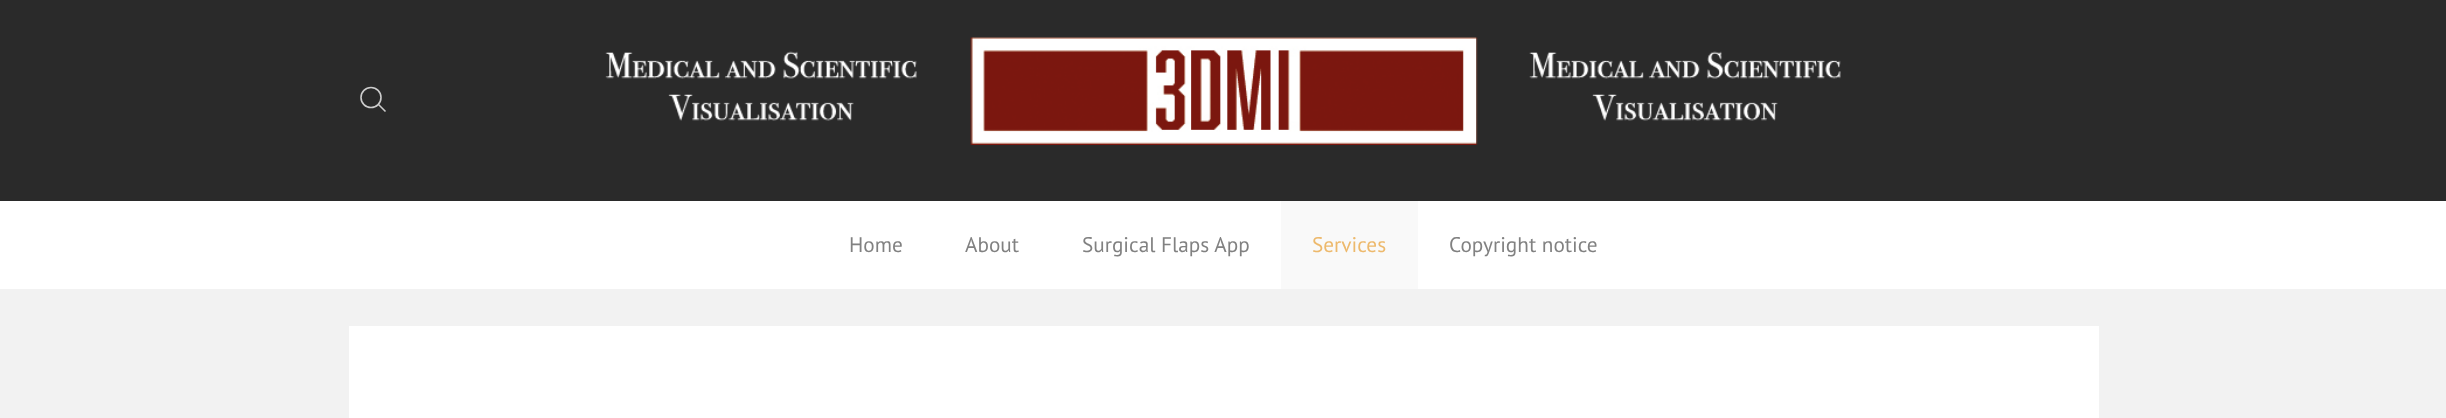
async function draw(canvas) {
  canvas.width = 2446
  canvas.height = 418
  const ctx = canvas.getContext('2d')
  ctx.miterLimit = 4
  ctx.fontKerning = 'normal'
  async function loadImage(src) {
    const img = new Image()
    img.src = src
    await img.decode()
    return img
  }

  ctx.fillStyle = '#f2f2f2'
  ctx.fillRect(0, 0, 2446, 418)
  ctx.fillStyle = '#2a2a2a'
  ctx.fillRect(0, 0, 2446, 201)
  ctx.beginPath()
  ctx.arc(371, 97.5, 10, 0, 2 * Math.PI)
  ctx.strokeStyle = '#ccc'
  ctx.lineWidth = 1.6
  ctx.stroke()
  ctx.beginPath()
  ctx.moveTo(378.5, 104.5)
  ctx.lineTo(385.5, 111.5)
  ctx.stroke()
  ctx.drawImage(await loadImage('image0.png'), 605, 37, 1236, 108)
  ctx.fillStyle = '#fff'
  ctx.fillRect(0, 201, 2446, 88)
  ctx.font = '21.25px PT Sans'
  ctx.fillStyle = '#818181'
  ctx.fillText('Home', 849, 252)
  ctx.fillText('About', 965, 252)
  ctx.fillText('Surgical Flaps App', 1082, 252)
  ctx.fillStyle = '#f9f9f9'
  ctx.fillRect(1281, 201, 137, 88)
  ctx.fillStyle = '#edb96c'
  ctx.fillText('Services', 1312, 252)
  ctx.fillStyle = '#818181'
  ctx.fillText('Copyright notice', 1449, 252)
  ctx.fillStyle = '#fff'
  ctx.fillRect(349, 326, 1750, 92)
}

draw(document.querySelector('canvas'))
